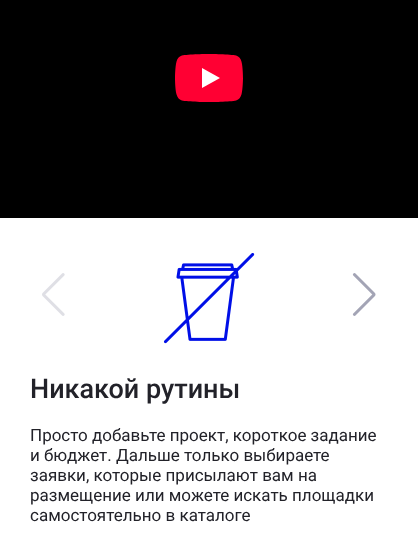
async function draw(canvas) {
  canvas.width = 418
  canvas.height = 540
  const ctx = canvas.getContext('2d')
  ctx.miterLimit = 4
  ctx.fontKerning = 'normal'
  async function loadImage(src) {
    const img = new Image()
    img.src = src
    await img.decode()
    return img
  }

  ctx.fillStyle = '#fff'
  ctx.fillRect(0, 0, 418, 540)
  ctx.drawImage(await loadImage('image0.png'), 0, 0, 418, 218)
  ctx.drawImage(await loadImage('image1.png'), 42, 273, 23, 43)
  ctx.drawImage(await loadImage('image2.png'), 352, 273, 24, 43)
  ctx.drawImage(await loadImage('image3.png'), 163, 253, 92, 91)
  ctx.font = '500 27px Roboto'
  ctx.fillStyle = '#222229'
  ctx.fillText('Никакой рутины', 30, 398)
  ctx.font = '17px Roboto'
  ctx.fillText('Просто добавьте проект, короткое задание', 30, 441)
  ctx.fillText('и бюджет. Дальше только выбираете', 30, 461)
  ctx.fillText('заявки, которые присылают вам на', 30, 481)
  ctx.fillText('размещение или можете искать площадки', 30, 501)
  ctx.fillText('самостоятельно в каталоге', 30, 521)
}

draw(document.querySelector('canvas'))
